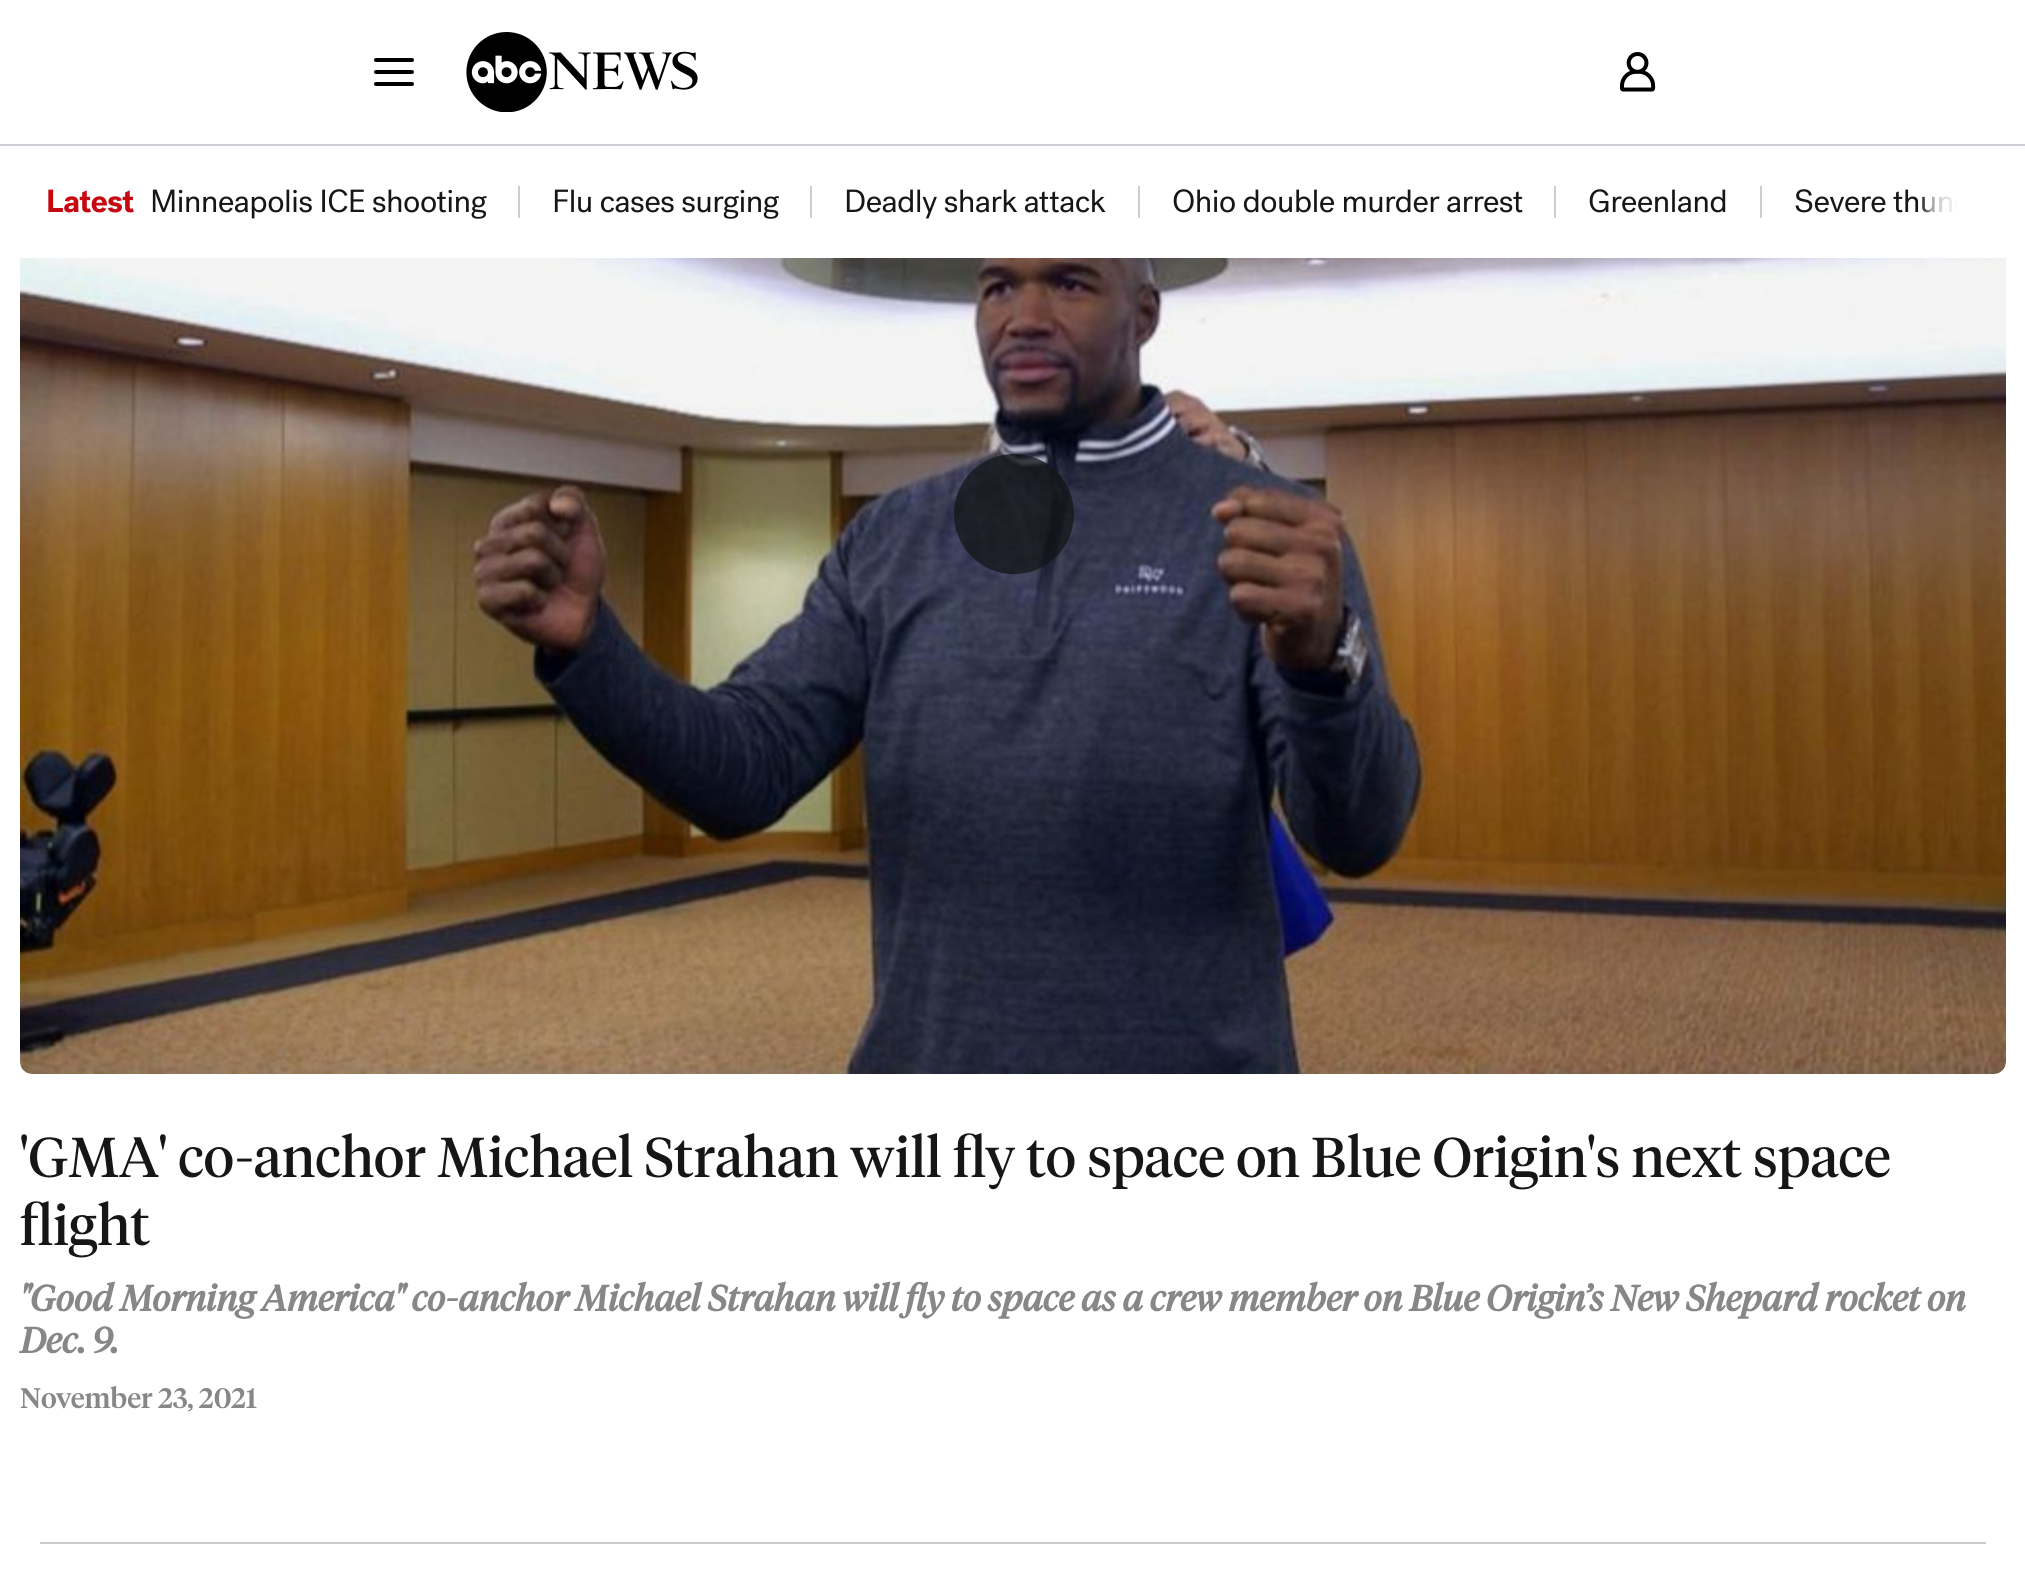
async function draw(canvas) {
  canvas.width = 2025
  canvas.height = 1569
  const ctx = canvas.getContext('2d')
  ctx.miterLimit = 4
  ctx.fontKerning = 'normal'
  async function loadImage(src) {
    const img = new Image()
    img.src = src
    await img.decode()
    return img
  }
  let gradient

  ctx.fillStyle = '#fff'
  ctx.fillRect(0, 0, 2025, 1569)
  ctx.fillStyle = '#000'
  ctx.beginPath()
  ctx.roundRect(374, 70, 40, 4, 2)
  ctx.fill()
  ctx.beginPath()
  ctx.roundRect(374, 58, 40, 4, 2)
  ctx.fill()
  ctx.beginPath()
  ctx.roundRect(374, 82, 40, 4, 2)
  ctx.fill()
  ctx.drawImage(await loadImage('image0.png'), 466, 32, 232, 80)
  ctx.drawImage(await loadImage('image1.png'), 1620, 52, 36, 40)
  ctx.fillStyle = '#cbced4'
  ctx.fillRect(0, 144, 2025, 2)
  ctx.drawImage(await loadImage('image2.png'), 48, 189, 86, 24)
  ctx.drawImage(await loadImage('image3.png'), 152, 189, 335, 30)
  ctx.fillRect(518, 186, 2, 32)
  ctx.drawImage(await loadImage('image4.png'), 554, 189, 225, 30)
  ctx.fillRect(810, 186, 2, 32)
  ctx.drawImage(await loadImage('image5.png'), 846, 189, 260, 30)
  ctx.fillRect(1138, 186, 2, 32)
  ctx.drawImage(await loadImage('image6.png'), 1173, 189, 350, 24)
  ctx.fillRect(1554, 186, 2, 32)
  ctx.drawImage(await loadImage('image7.png'), 1589, 189, 137, 24)
  ctx.fillRect(1760, 186, 2, 32)
  ctx.drawImage(await loadImage('image8.png'), 1795, 189, 163, 24)
  gradient = ctx.createLinearGradient(1920, 202, 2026, 202)
  gradient.addColorStop(0, '#ffffff00')
  gradient.addColorStop(0.05, '#ffffff45')
  gradient.addColorStop(0.1, '#ffffff8a')
  gradient.addColorStop(0.15, '#ffffffbd')
  gradient.addColorStop(0.36, '#fff')
  ctx.fillStyle = gradient
  ctx.fillRect(1922, 196, 36, 17)
  ctx.drawImage(await loadImage('image9.png'), 20, 258, 1986, 816)
  ctx.fillStyle = '#141618bf'
  ctx.beginPath()
  ctx.arc(1014, 514, 60, 0, 2 * Math.PI)
  ctx.fill()
  ctx.font = '56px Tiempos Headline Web'
  ctx.fillStyle = '#141618'
  ctx.fillText('\'GMA\' co-anchor Michael Strahan will fly to space on Blue Origin\'s next space', 20, 1177)
  ctx.fillText('flight', 20, 1245)
  ctx.font = 'italic bold 36px Tiempos Headline Web'
  ctx.fillStyle = '#878787'
  ctx.fillText('"Good Morning America" co-anchor Michael Strahan will fly to space as a crew member on Blue Origin’s New Shepard rocket on', 20, 1311)
  ctx.fillText('Dec. 9.', 20, 1353)
  ctx.font = '500 28px Tiempos Headline Web'
  ctx.fillText('November 23, 2021', 20, 1408)
  ctx.fillStyle = '#ccc'
  ctx.fillRect(40, 1542, 1946, 2)
}

draw(document.querySelector('canvas'))
